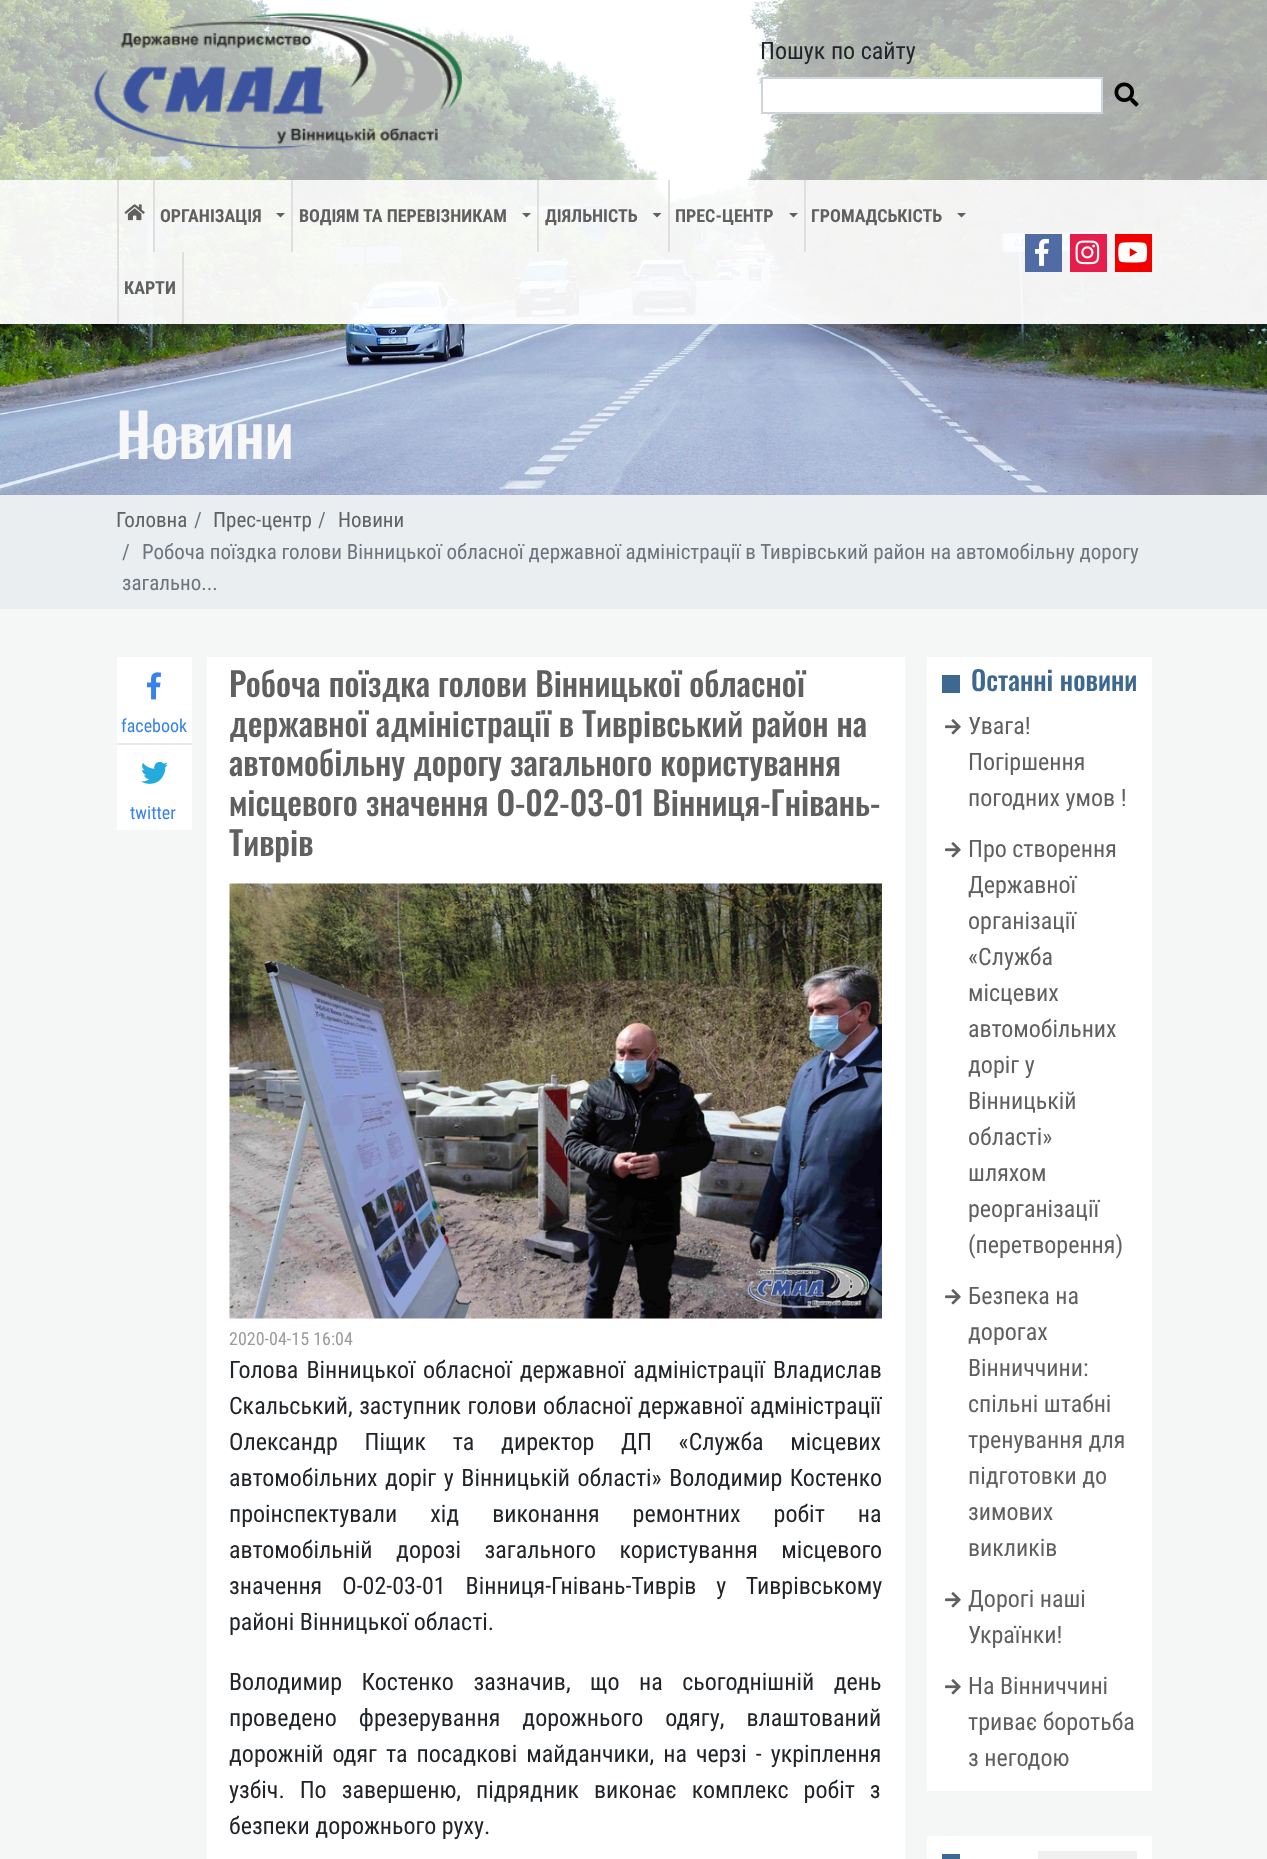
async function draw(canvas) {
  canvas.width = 1267
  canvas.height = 1859
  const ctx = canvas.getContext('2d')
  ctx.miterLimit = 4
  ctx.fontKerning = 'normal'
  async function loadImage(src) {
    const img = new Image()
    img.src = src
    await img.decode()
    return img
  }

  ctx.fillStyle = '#f4f7f6'
  ctx.fillRect(0, 0, 1267, 1859)
  ctx.drawImage(await loadImage('image6.png'), 0, 0, 1267, 495)
  ctx.fillStyle = '#ffffffa6'
  ctx.fillRect(0, 0, 1267, 180)
  ctx.drawImage(await loadImage('image0.png'), 94, 13, 368, 136)
  ctx.font = '24px Roboto Condensed'
  ctx.fillStyle = '#212529'
  ctx.fillText('Пошук по сайту', 760, 59)
  ctx.fillStyle = '#fff'
  ctx.beginPath()
  ctx.rect(762, 78, 340, 35)
  ctx.fill()
  ctx.strokeStyle = '#ced4da'
  ctx.lineWidth = 2
  ctx.stroke()
  ctx.drawImage(await loadImage('image1.png'), 1114, 82, 25, 25)
  ctx.fillStyle = '#fffffff2'
  ctx.fillRect(0, 180, 1267, 144)
  ctx.fillStyle = '#dfdfdf'
  ctx.fillRect(117, 180, 2, 144)
  ctx.drawImage(await loadImage('image2.png'), 124, 204, 21, 17)
  ctx.fillRect(153, 180, 2, 72)
  ctx.font = 'bold 18px Roboto Condensed'
  ctx.fillStyle = '#606060'
  ctx.fillText('ОРГАНІЗАЦІЯ', 160, 222)
  ctx.beginPath()
  ctx.moveTo(276, 213)
  ctx.lineTo(285, 213)
  ctx.lineTo(280.5, 217.5)
  ctx.closePath()
  ctx.fill()
  ctx.fillStyle = '#dfdfdf'
  ctx.fillRect(291, 180, 2, 72)
  ctx.fillStyle = '#606060'
  ctx.fillText('ВОДІЯМ ТА ПЕРЕВІЗНИКАМ', 299, 222)
  ctx.beginPath()
  ctx.moveTo(522, 213)
  ctx.lineTo(531, 213)
  ctx.lineTo(526.5, 217.5)
  ctx.closePath()
  ctx.fill()
  ctx.fillStyle = '#dfdfdf'
  ctx.fillRect(537, 180, 2, 72)
  ctx.fillStyle = '#606060'
  ctx.fillText('ДІЯЛЬНІСТЬ', 545, 222)
  ctx.beginPath()
  ctx.moveTo(652.5, 213)
  ctx.lineTo(661.5, 213)
  ctx.lineTo(657, 217.5)
  ctx.closePath()
  ctx.fill()
  ctx.fillStyle = '#dfdfdf'
  ctx.fillRect(668, 180, 2, 72)
  ctx.fillStyle = '#606060'
  ctx.fillText('ПРЕС-ЦЕНТР', 675, 222)
  ctx.beginPath()
  ctx.moveTo(789, 213)
  ctx.lineTo(798, 213)
  ctx.lineTo(793.5, 217.5)
  ctx.closePath()
  ctx.fill()
  ctx.fillStyle = '#dfdfdf'
  ctx.fillRect(804, 180, 2, 72)
  ctx.fillStyle = '#606060'
  ctx.fillText('ГРОМАДСЬКІСТЬ', 811, 222)
  ctx.beginPath()
  ctx.moveTo(957, 213)
  ctx.lineTo(966, 213)
  ctx.lineTo(961.5, 217.5)
  ctx.closePath()
  ctx.fill()
  ctx.fillStyle = '#dfdfdf'
  ctx.fillRect(182, 252, 2, 72)
  ctx.fillStyle = '#606060'
  ctx.fillText('КАРТИ', 124, 294)
  ctx.fillStyle = '#516ca4'
  ctx.fillRect(1025, 234, 37, 38)
  ctx.drawImage(await loadImage('image3.png'), 1035, 238, 14, 28)
  ctx.fillStyle = '#e61e4e'
  ctx.fillRect(1070, 234, 37, 38)
  ctx.drawImage(await loadImage('image4.png'), 1075, 240, 25, 25)
  ctx.fillStyle = '#f20000'
  ctx.fillRect(1115, 234, 37, 38)
  ctx.drawImage(await loadImage('image5.png'), 1118, 242, 30, 21)
  ctx.font = '500 60px Oswald'
  ctx.fillStyle = '#f7f7f7'
  ctx.fillText('Новини', 116, 459)
  ctx.fillStyle = '#fff'
  ctx.fillRect(117, 657, 75, 173)
  ctx.fillStyle = '#eaeaea'
  ctx.fillRect(117, 743, 75, 2)
  ctx.drawImage(await loadImage('image7.png'), 147, 672, 14, 28)
  ctx.font = '18px Roboto Condensed'
  ctx.fillStyle = '#3882ec'
  ctx.fillText('facebook', 121, 732)
  ctx.drawImage(await loadImage('image8.png'), 141, 761, 27, 23)
  ctx.fillText('twitter', 130, 819)
  ctx.fillStyle = '#fff'
  ctx.fillRect(207, 657, 698, 1202)
  ctx.font = '500 33px Oswald'
  ctx.fillStyle = '#606060'
  ctx.fillText('Робоча поїздка голови Вінницької обласної', 229, 697)
  ctx.fillText('державної адміністрації в Тиврівський район на', 229, 737)
  ctx.fillText('автомобільну дорогу загального користування', 229, 776)
  ctx.fillText('місцевого значення О-02-03-01 Вінниця-Гнівань-', 229, 816)
  ctx.fillText('Тиврів', 229, 856)
  ctx.drawImage(await loadImage('image9.png'), 229, 883, 653, 436)
  ctx.font = '18px Roboto Condensed'
  ctx.fillStyle = '#9b9b9b'
  ctx.fillText('2020-04-15 16:04', 229, 1345)
  ctx.wordSpacing = '2.75px'
  ctx.font = '24px Roboto Condensed'
  ctx.fillStyle = '#212529'
  ctx.fillText('Голова Вінницької обласної державної адміністрації Владислав', 229, 1378)
  ctx.wordSpacing = '1px'
  ctx.fillText('Скальський, заступник голови обласної державної адміністрації', 229, 1414)
  ctx.wordSpacing = '21.25px'
  ctx.fillText('Олександр Піщик та директор ДП «Служба місцевих', 229, 1450)
  ctx.wordSpacing = '2px'
  ctx.fillText('автомобільних доріг у Вінницькій області» Володимир Костенко', 229, 1486)
  ctx.wordSpacing = '27.5px'
  ctx.fillText('проінспектували хід виконання ремонтних робіт на', 229, 1522)
  ctx.wordSpacing = '18px'
  ctx.fillText('автомобільній дорозі загального користування місцевого', 229, 1558)
  ctx.wordSpacing = '14.5px'
  ctx.fillText('значення О-02-03-01 Вінниця-Гнівань-Тиврів у Тиврівському', 229, 1594)
  ctx.wordSpacing = '0px'
  ctx.fillText('районі Вінницької області.', 229, 1630)
  ctx.wordSpacing = '14px'
  ctx.fillText('Володимир Костенко зазначив, що на сьогоднішній день', 229, 1690)
  ctx.wordSpacing = '16.5px'
  ctx.fillText('проведено фрезерування дорожнього одягу, влаштований', 229, 1726)
  ctx.wordSpacing = '3.5px'
  ctx.fillText('дорожній одяг та посадкові майданчики, на черзі - укріплення', 229, 1762)
  ctx.wordSpacing = '9.5px'
  ctx.fillText('узбіч. По завершеню, підрядник виконає комплекс робіт з', 229, 1798)
  ctx.wordSpacing = '0px'
  ctx.fillText('безпеки дорожнього руху.', 229, 1834)
  ctx.fillStyle = '#fff'
  ctx.fillRect(927, 657, 225, 1134)
  ctx.fillStyle = '#3d6891'
  ctx.fillRect(942, 675, 18, 18)
  ctx.font = '500 27px Oswald'
  ctx.fillText('Останні новини', 971, 691)
  ctx.drawImage(await loadImage('image10.png'), 945, 719, 16, 16)
  ctx.font = '24px Roboto Condensed'
  ctx.fillStyle = '#606060'
  ctx.fillText('Увага!', 968, 734)
  ctx.fillText('Погіршення', 968, 770)
  ctx.fillText('погодних умов !', 968, 806)
  ctx.drawImage(await loadImage('image10.png'), 945, 842, 16, 16)
  ctx.fillText('Про створення', 968, 857)
  ctx.fillText('Державної', 968, 893)
  ctx.fillText('організації', 968, 929)
  ctx.fillText('«Служба', 968, 965)
  ctx.fillText('місцевих', 968, 1001)
  ctx.fillText('автомобільних', 968, 1037)
  ctx.fillText('доріг у', 968, 1073)
  ctx.fillText('Вінницькій', 968, 1109)
  ctx.fillText('області»', 968, 1145)
  ctx.fillText('шляхом', 968, 1181)
  ctx.fillText('реорганізації', 968, 1217)
  ctx.fillText('(перетворення)', 968, 1253)
  ctx.drawImage(await loadImage('image10.png'), 945, 1289, 16, 16)
  ctx.fillText('Безпека на', 968, 1304)
  ctx.fillText('дорогах', 968, 1340)
  ctx.fillText('Вінниччини:', 968, 1376)
  ctx.fillText('спільні штабні', 968, 1412)
  ctx.fillText('тренування для', 968, 1448)
  ctx.fillText('підготовки до', 968, 1484)
  ctx.fillText('зимових', 968, 1520)
  ctx.fillText('викликів', 968, 1556)
  ctx.drawImage(await loadImage('image10.png'), 945, 1592, 16, 16)
  ctx.fillText('Дорогі наші', 968, 1607)
  ctx.fillText('Українки!', 968, 1643)
  ctx.drawImage(await loadImage('image10.png'), 945, 1679, 16, 16)
  ctx.fillText('На Вінниччині', 968, 1694)
  ctx.fillText('триває боротьба', 968, 1730)
  ctx.fillText('з негодою', 968, 1766)
  ctx.fillStyle = '#fff'
  ctx.fillRect(927, 1836, 225, 23)
  ctx.fillStyle = '#3d6891'
  ctx.fillRect(942, 1854, 18, 5)
  ctx.fillStyle = '#f0f0f0'
  ctx.fillRect(1038, 1851, 99, 8)
  ctx.fillStyle = '#ebeef0'
  ctx.fillRect(0, 495, 1267, 114)
  ctx.font = '21px Roboto Condensed'
  ctx.fillStyle = '#606060'
  ctx.fillText('Головна', 116, 527)
  ctx.fillStyle = '#6c757d'
  ctx.fillText('/', 194, 527)
  ctx.fillStyle = '#606060'
  ctx.fillText('Прес-центр', 213, 527)
  ctx.fillStyle = '#6c757d'
  ctx.fillText('/', 318, 527)
  ctx.fillStyle = '#606060'
  ctx.fillText('Новини', 338, 527)
  ctx.fillStyle = '#6c757d'
  ctx.fillText('/', 122, 559)
  ctx.fillText('Робоча поїздка голови Вінницької обласної державної адміністрації в Тиврівський район на автомобільну дорогу', 142, 559)
  ctx.fillText('загально...', 122, 590)
}

draw(document.querySelector('canvas'))
